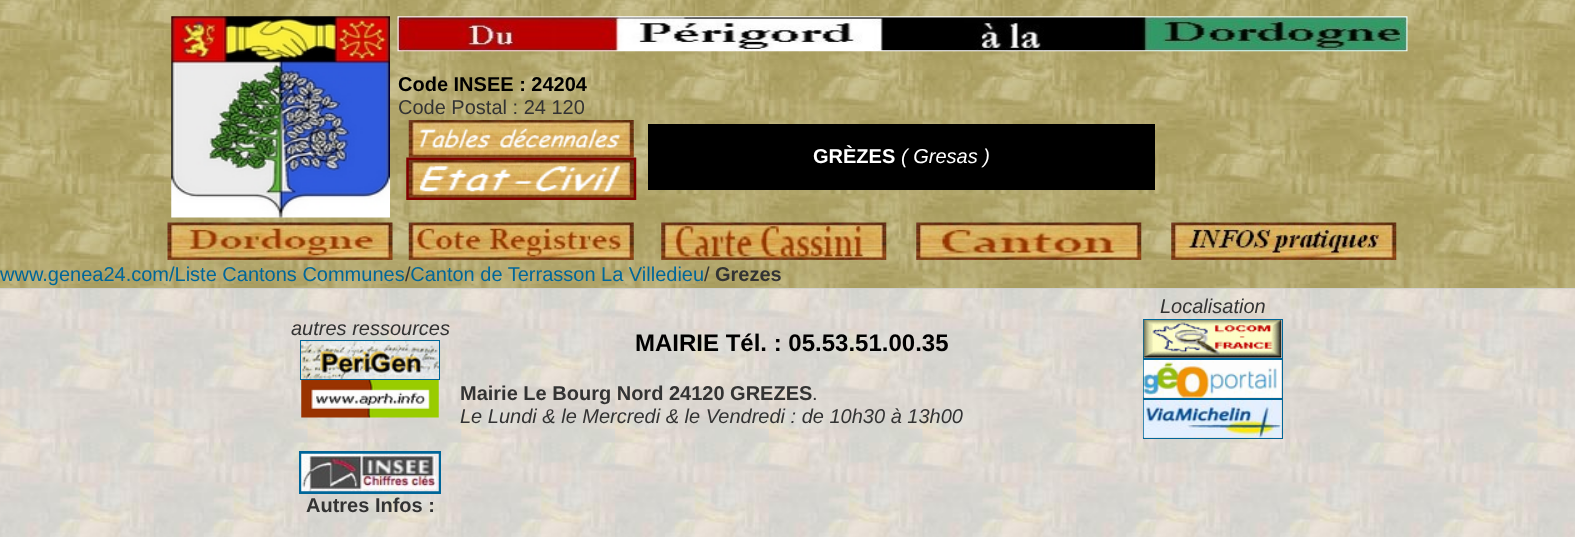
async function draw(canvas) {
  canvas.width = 1575
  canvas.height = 537
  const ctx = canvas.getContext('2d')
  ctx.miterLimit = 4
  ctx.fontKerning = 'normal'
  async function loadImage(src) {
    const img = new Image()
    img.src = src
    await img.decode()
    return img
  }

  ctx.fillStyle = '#fff'
  ctx.fillRect(0, 0, 1575, 537)
  ctx.drawImage(await loadImage('image0.png'), 0, 0, 1575, 288)
  ctx.fillStyle = '#ccc'
  ctx.fillRect(0, 288, 1575, 1)
  ctx.drawImage(await loadImage('image1.png'), 171, 16, 219, 202)
  ctx.drawImage(await loadImage('image2.png'), 397, 16, 1011, 36)
  ctx.font = 'bold 20px Liberation Sans'
  ctx.fillStyle = '#000'
  ctx.fillText('Code INSEE : 24204', 398, 91)
  ctx.font = '20px Liberation Sans'
  ctx.fillStyle = '#333'
  ctx.fillText('Code Postal : 24 120', 398, 114)
  ctx.drawImage(await loadImage('image3.png'), 408, 120, 226, 38)
  ctx.drawImage(await loadImage('image4.png'), 406, 157, 231, 43)
  ctx.fillStyle = '#000'
  ctx.fillRect(648, 124, 507, 66)
  ctx.font = 'bold 20px Liberation Sans'
  ctx.fillStyle = '#fff'
  ctx.fillText('GRÈZES', 813, 163)
  ctx.font = 'italic 20px Liberation Sans'
  ctx.fillText('( Gresas )', 901, 163)
  ctx.drawImage(await loadImage('image5.png'), 167, 222, 226, 38)
  ctx.drawImage(await loadImage('image6.png'), 408, 222, 226, 38)
  ctx.drawImage(await loadImage('image7.png'), 661, 222, 226, 38)
  ctx.drawImage(await loadImage('image8.png'), 916, 222, 226, 38)
  ctx.drawImage(await loadImage('image9.png'), 1171, 222, 226, 38)
  ctx.font = '20px Liberation Sans'
  ctx.fillStyle = '#069'
  ctx.fillText('www.genea24.com/Liste Cantons Communes Canton de Terrasson La Villedieu', 0, 281)
  ctx.fillStyle = '#333'
  ctx.fillText('/', 405, 281)
  ctx.fillText('/', 704, 281)
  ctx.font = 'bold 20px Liberation Sans'
  ctx.fillText('Grezes', 715, 281)
  ctx.drawImage(await loadImage('image10.png'), 0, 288, 1575, 249)
  ctx.font = 'italic 20px Liberation Sans'
  ctx.fillText('Localisation', 1160, 313)
  ctx.strokeStyle = '#069'
  ctx.strokeRect(1143.5, 319.5, 139, 39)
  ctx.strokeRect(1143.5, 359.5, 139, 39)
  ctx.strokeRect(1143.5, 399.5, 139, 39)
  ctx.drawImage(await loadImage('image11.png'), 1143, 320, 139, 38)
  ctx.drawImage(await loadImage('image12.png'), 1143, 360, 139, 38)
  ctx.drawImage(await loadImage('image13.png'), 1143, 400, 139, 38)
  ctx.fillText('autres ressources', 291, 335)
  ctx.strokeRect(300.5, 340.5, 139, 39)
  ctx.drawImage(await loadImage('image14.png'), 301, 341, 138, 38)
  ctx.drawImage(await loadImage('image15.png'), 301, 380, 138, 38)
  ctx.font = 'bold 24px Liberation Sans'
  ctx.fillStyle = '#000'
  ctx.fillText('MAIRIE Tél. : 05.53.51.00.35', 635, 351)
  ctx.font = 'bold 20px Liberation Sans'
  ctx.fillStyle = '#333'
  ctx.fillText('Mairie Le Bourg Nord 24120 GREZES', 460, 400)
  ctx.font = '20px Liberation Sans'
  ctx.fillText('.', 812, 400)
  ctx.font = 'italic 20px Liberation Sans'
  ctx.fillText('Le Lundi & le Mercredi & le Vendredi : de 10h30 à 13h00', 460, 423)
  ctx.lineWidth = 3
  ctx.strokeRect(300.5, 452.5, 139, 40)
  ctx.drawImage(await loadImage('image16.png'), 301, 453, 138, 39)
  ctx.font = 'bold 20px Liberation Sans'
  ctx.fillText('Autres Infos :', 306, 512)
}

draw(document.querySelector('canvas'))
